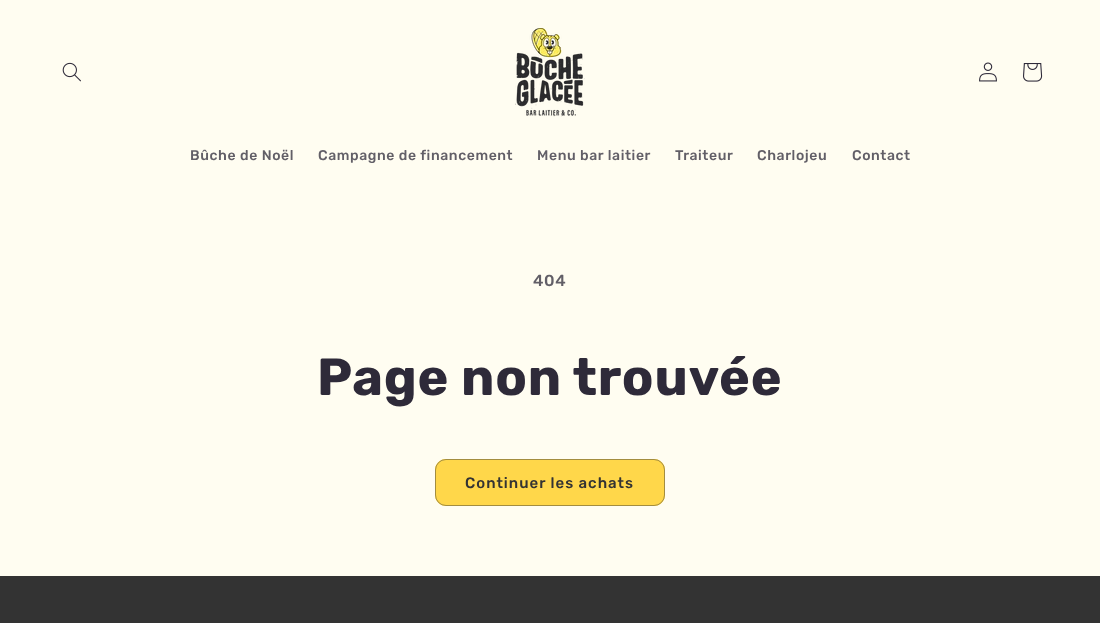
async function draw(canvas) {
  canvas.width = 1100
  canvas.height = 623
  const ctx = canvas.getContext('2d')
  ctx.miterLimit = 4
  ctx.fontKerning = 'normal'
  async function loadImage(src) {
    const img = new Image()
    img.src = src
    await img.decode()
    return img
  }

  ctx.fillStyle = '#fffdf1'
  ctx.fillRect(0, 0, 1100, 623)
  ctx.drawImage(await loadImage('image0.png'), 62, 62, 19, 20)
  ctx.drawImage(await loadImage('image1.png'), 515, 28, 70, 89)
  ctx.drawImage(await loadImage('image2.png'), 979, 62, 18, 20)
  ctx.drawImage(await loadImage('image3.png'), 1023, 63, 20, 19)
  ctx.letterSpacing = '0.6px'
  ctx.font = '500 14px Rubik'
  ctx.fillStyle = '#625f67'
  ctx.fillText('Bûche de Noël', 190, 160)
  ctx.fillText('Campagne de financement', 318, 160)
  ctx.fillText('Menu bar laitier', 537, 160)
  ctx.fillText('Traiteur', 675, 160)
  ctx.fillText('Charlojeu', 757, 160)
  ctx.fillText('Contact', 852, 160)
  ctx.font = '500 16px Rubik'
  ctx.fillText('404', 533, 286)
  ctx.letterSpacing = '0.75px'
  ctx.font = 'bold 52px Rubik'
  ctx.fillStyle = '#2e2a39'
  ctx.fillText('Page non trouvée', 317, 395)
  ctx.fillStyle = '#ffd74a'
  ctx.beginPath()
  ctx.roundRect(435, 459, 230, 47, 11)
  ctx.fill()
  ctx.beginPath()
  ctx.roundRect(435.5, 459.5, 229, 46, 10.5)
  ctx.strokeStyle = '#ffd74a'
  ctx.stroke()
  ctx.beginPath()
  ctx.roundRect(435.5, 459.5, 229, 46, 10.5)
  ctx.strokeStyle = '#33333373'
  ctx.stroke()
  ctx.letterSpacing = '1px'
  ctx.font = '500 15px Rubik'
  ctx.fillStyle = '#333'
  ctx.fillText('Continuer les achats', 465, 488)
  ctx.fillRect(0, 576, 1100, 47)
}

draw(document.querySelector('canvas'))
